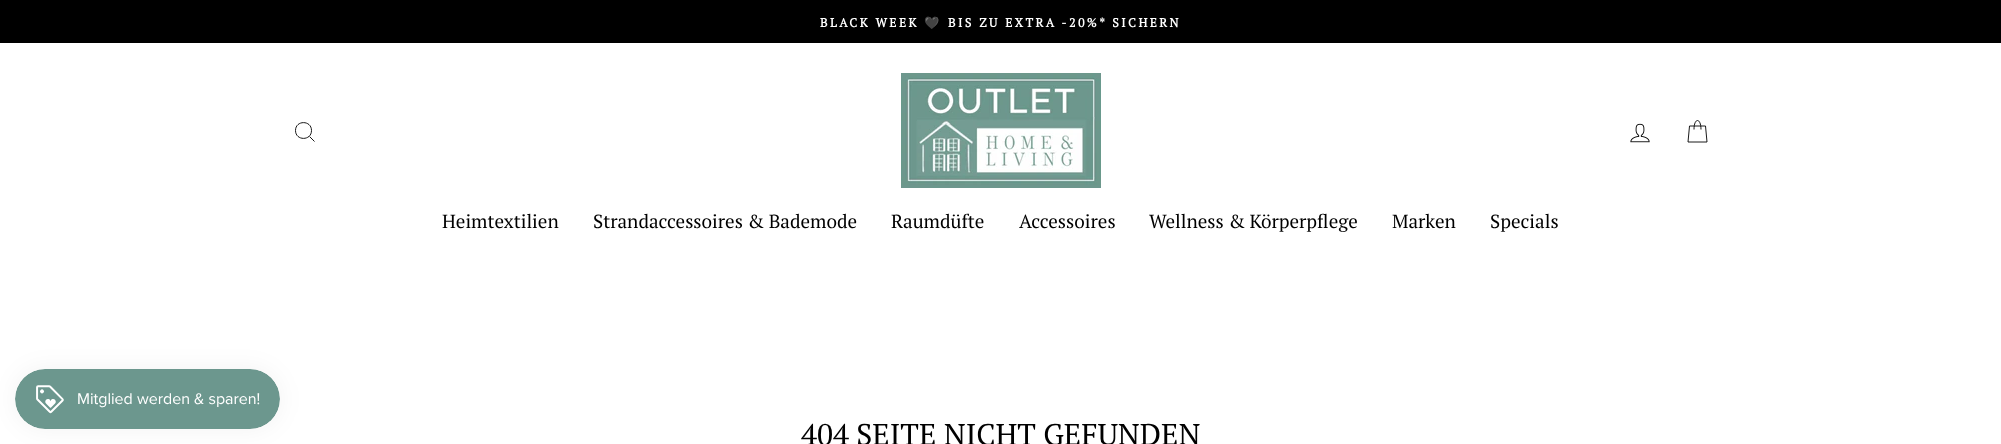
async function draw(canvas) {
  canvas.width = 2001
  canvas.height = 444
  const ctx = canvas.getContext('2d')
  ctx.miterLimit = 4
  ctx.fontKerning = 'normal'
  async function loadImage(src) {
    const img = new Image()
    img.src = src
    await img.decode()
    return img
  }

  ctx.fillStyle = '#fff'
  ctx.fillRect(0, 0, 2001, 444)
  ctx.fillStyle = '#0000000d'
  ctx.filter = 'blur(12.5px)'
  ctx.beginPath()
  ctx.roundRect(15, 369, 265, 60, 30)
  ctx.fill()
  ctx.filter = 'none'
  ctx.drawImage(await loadImage('image0.png'), 15, 369, 265, 60)
  ctx.fillStyle = '#000'
  ctx.fillRect(0, 0, 2001, 43)
  ctx.letterSpacing = '2.45px'
  ctx.font = 'bold 12.25px PT Serif'
  ctx.fillStyle = '#fff'
  ctx.fillText('BLACK WEEK', 820, 27)
  ctx.font = 'bold 12.25px Noto Color Emoji'
  ctx.fillText('🖤', 924, 27)
  ctx.font = 'bold 12.25px PT Serif'
  ctx.fillText('BIS ZU EXTRA -20%* SICHERN', 948, 27)
  ctx.beginPath()
  ctx.moveTo(311.5, 130.5)
  ctx.bezierCurveTo(311.5, 141, 295.5, 141, 295.5, 130.5)
  ctx.bezierCurveTo(295.5, 120, 311.5, 120, 311.5, 130.5)
  ctx.closePath()
  ctx.moveTo(314.5, 141.5)
  ctx.lineTo(309.5, 136.5)
  ctx.strokeStyle = '#000'
  ctx.lineWidth = 0.9
  ctx.stroke()
  ctx.drawImage(await loadImage('image1.png'), 901, 73, 200, 115)
  ctx.drawImage(await loadImage('image2.png'), 1630, 123, 20, 20)
  ctx.beginPath()
  ctx.moveTo(1694, 129.5)
  ctx.bezierCurveTo(1694, 117.5, 1701, 117.5, 1701, 129.5)
  ctx.moveTo(1689.5, 126)
  ctx.lineTo(1705.5, 126)
  ctx.lineTo(1707, 142)
  ctx.lineTo(1688, 142)
  ctx.closePath()
  ctx.stroke()
  ctx.letterSpacing = '0px'
  ctx.font = '19px PT Serif'
  ctx.fillStyle = '#000'
  ctx.fillText('Heimtextilien', 442, 228)
  ctx.fillText('Strandaccessoires & Bademode', 593, 228)
  ctx.fillText('Raumdüfte', 891, 228)
  ctx.fillText('Accessoires', 1019, 228)
  ctx.fillText('Wellness & Körperpflege', 1149, 228)
  ctx.fillText('Marken', 1392, 228)
  ctx.fillText('Specials', 1490, 228)
  ctx.font = '30px PT Serif'
  ctx.fillText('404 SEITE NICHT GEFUNDEN', 801, 445)
}

draw(document.querySelector('canvas'))
